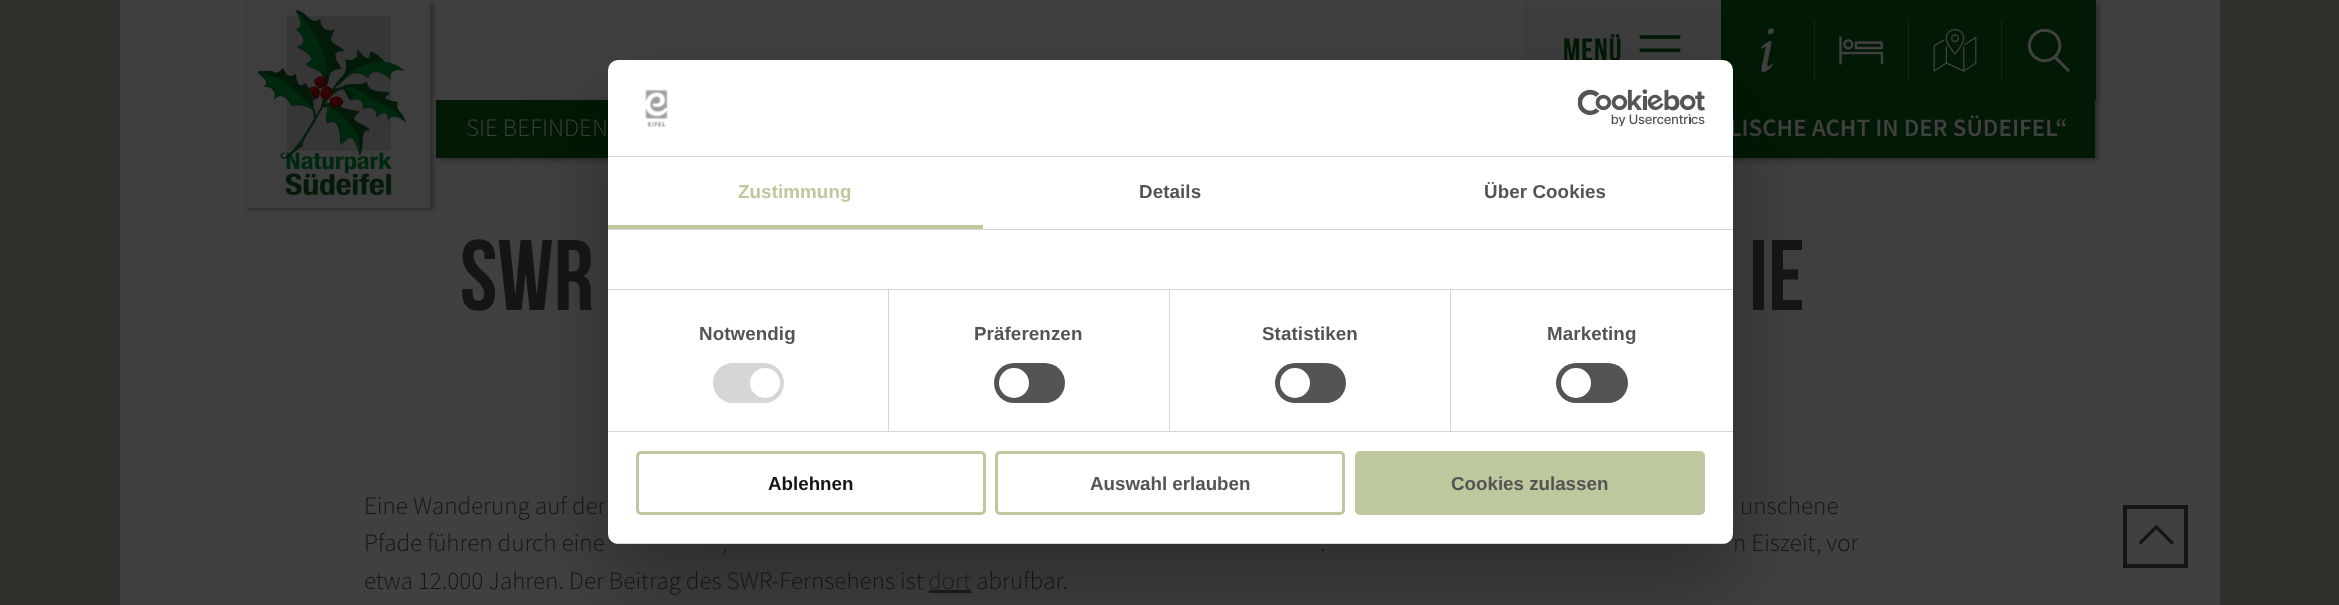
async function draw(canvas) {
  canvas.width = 2339
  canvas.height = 605
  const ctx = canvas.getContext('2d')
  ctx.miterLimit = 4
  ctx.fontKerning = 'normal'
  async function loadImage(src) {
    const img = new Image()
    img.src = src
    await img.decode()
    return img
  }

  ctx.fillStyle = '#2f302c'
  ctx.fillRect(0, 0, 2339, 605)
  ctx.fillStyle = '#404040'
  ctx.fillRect(120, 0, 2100, 605)
  ctx.fillStyle = '#15151580'
  ctx.filter = 'blur(2.5px)'
  ctx.beginPath()
  ctx.rect(1528, 3, 571, 100)
  ctx.fill()
  ctx.filter = 'none'
  ctx.fillStyle = '#021905'
  ctx.fillRect(1721, 0, 375, 100)
  ctx.fillStyle = '#15151580'
  ctx.filter = 'blur(2.5px)'
  ctx.beginPath()
  ctx.rect(439, 103, 1659, 57)
  ctx.fill()
  ctx.filter = 'none'
  ctx.fillStyle = '#021905'
  ctx.fillRect(436, 100, 1659, 58)
  ctx.fillStyle = '#15151580'
  ctx.filter = 'blur(2.5px)'
  ctx.beginPath()
  ctx.rect(248, 3, 185, 207)
  ctx.fill()
  ctx.filter = 'none'
  ctx.fillStyle = '#3e3e3e'
  ctx.fillRect(246, 1, 184, 207)
  ctx.drawImage(await loadImage('image0.png'), 258, 10, 148, 186)
  ctx.fillRect(1526, 1, 195, 59)
  ctx.letterSpacing = '1px'
  ctx.font = 'bold 32px Bebas Neue'
  ctx.fillStyle = '#021905'
  ctx.fillText('MENÜ', 1563, 61)
  ctx.drawImage(await loadImage('image1.png'), 1639, 35, 42, 18)
  ctx.drawImage(await loadImage('image2.png'), 1761, 28, 13, 45)
  ctx.fillStyle = '#152517'
  ctx.fillRect(1814, 20, 1, 60)
  ctx.drawImage(await loadImage('image3.png'), 1839, 36, 45, 29)
  ctx.fillRect(1908, 20, 1, 60)
  ctx.drawImage(await loadImage('image4.png'), 1933, 28, 44, 44)
  ctx.fillRect(2001, 20, 1, 60)
  ctx.drawImage(await loadImage('image5.png'), 2027, 28, 43, 44)
  ctx.letterSpacing = '0px'
  ctx.font = '300 25px Source Sans Pro'
  ctx.fillStyle = '#404040'
  ctx.fillText('SIE BEFINDEN', 466, 136)
  ctx.font = '600 25px Source Sans Pro'
  ctx.fillText('LISCHE ACHT IN DER SÜDEIFEL“', 1729, 136)
  ctx.fillStyle = '#1d1e19'
  ctx.fillRect(929, 590, 42, 3)
  ctx.fillStyle = '#0000004d'
  ctx.filter = 'blur(42.5px)'
  ctx.beginPath()
  ctx.roundRect(608, 100, 1125, 484, 10)
  ctx.fill()
  ctx.filter = 'none'
  ctx.fillStyle = '#fff'
  ctx.beginPath()
  ctx.roundRect(608, 60, 1125, 484, 10)
  ctx.fill()
  ctx.fillStyle = '#d6d6d6'
  ctx.fillRect(608, 156, 1125, 1)
  ctx.drawImage(await loadImage('image6.png'), 645, 89, 23, 39)
  ctx.drawImage(await loadImage('image7.png'), 1578, 89, 127, 37)
  ctx.fillRect(608, 229, 1125, 1)
  ctx.fillStyle = '#bec89f'
  ctx.fillRect(608, 225, 375, 4)
  ctx.letterSpacing = '0.1px'
  ctx.font = 'bold 18.75px Liberation Sans'
  ctx.fillText('Zustimmung', 738, 198)
  ctx.fillStyle = '#545454'
  ctx.fillText('Details', 1139, 198)
  ctx.fillText('Über Cookies', 1484, 198)
  ctx.fillStyle = '#d6d6d6'
  ctx.fillRect(608, 289, 1125, 1)
  ctx.fillRect(608, 431, 1125, 1)
  ctx.fillRect(888, 290, 1, 141)
  ctx.fillStyle = '#545454'
  ctx.fillText('Notwendig', 699, 340)
  ctx.fillStyle = '#d6d6d6'
  ctx.beginPath()
  ctx.roundRect(713, 363, 71, 40, 20)
  ctx.fill()
  ctx.fillStyle = '#fff'
  ctx.beginPath()
  ctx.arc(765, 383, 15, 0, 2 * Math.PI)
  ctx.fill()
  ctx.fillStyle = '#d6d6d6'
  ctx.fillRect(1169, 290, 1, 141)
  ctx.fillStyle = '#545454'
  ctx.fillText('Präferenzen', 974, 340)
  ctx.beginPath()
  ctx.roundRect(994, 363, 71, 40, 20)
  ctx.fill()
  ctx.fillStyle = '#fff'
  ctx.beginPath()
  ctx.arc(1014, 383, 15, 0, 2 * Math.PI)
  ctx.fill()
  ctx.fillStyle = '#d6d6d6'
  ctx.fillRect(1450, 290, 1, 141)
  ctx.fillStyle = '#545454'
  ctx.fillText('Statistiken', 1262, 340)
  ctx.beginPath()
  ctx.roundRect(1275, 363, 71, 40, 20)
  ctx.fill()
  ctx.fillStyle = '#fff'
  ctx.beginPath()
  ctx.arc(1295, 383, 15, 0, 2 * Math.PI)
  ctx.fill()
  ctx.fillStyle = '#545454'
  ctx.fillText('Marketing', 1547, 340)
  ctx.beginPath()
  ctx.roundRect(1556, 363, 72, 40, 20)
  ctx.fill()
  ctx.fillStyle = '#fff'
  ctx.beginPath()
  ctx.arc(1576, 383, 15, 0, 2 * Math.PI)
  ctx.fill()
  ctx.save()
  ctx.beginPath()
  ctx.roundRect(608, 60, 1125, 484, 10)
  ctx.clip()
  ctx.fillStyle = '#d6d6d6'
  ctx.fillRect(608, 543, 1125, 1)
  ctx.restore()
  ctx.beginPath()
  ctx.roundRect(637.5, 452.5, 347, 61, 3.5)
  ctx.strokeStyle = '#bec89f'
  ctx.lineWidth = 3
  ctx.stroke()
  ctx.letterSpacing = '0px'
  ctx.fillStyle = '#151515'
  ctx.fillText('Ablehnen', 768, 490)
  ctx.beginPath()
  ctx.roundRect(996.5, 452.5, 347, 61, 3.5)
  ctx.stroke()
  ctx.fillStyle = '#545454'
  ctx.fillText('Auswahl erlauben', 1090, 490)
  ctx.fillStyle = '#bec89f'
  ctx.beginPath()
  ctx.roundRect(1356.5, 452.5, 347, 61, 3.5)
  ctx.fill()
  ctx.stroke()
  ctx.fillStyle = '#545454'
  ctx.fillText('Cookies zulassen', 1451, 490)
  ctx.font = 'bold 100px Bebas Neue'
  ctx.fillStyle = '#151515'
  ctx.fillText('SWR', 460, 310)
  ctx.fillText('ie', 1749, 310)
  ctx.font = '300 25px Source Sans Pro'
  ctx.fillText('Eine Wanderung auf der', 364, 514)
  ctx.fillText('unschene', 1740, 514)
  ctx.fillText('Pfade führen durch eine', 364, 551)
  ctx.fillText(',', 722, 551)
  ctx.fillText('.', 1320, 551)
  ctx.fillText('n Eiszeit, vor', 1733, 551)
  ctx.fillText('etwa 12.000 Jahren. Der Beitrag des SWR-Fernsehens ist', 364, 589)
  ctx.fillStyle = '#1d1e19'
  ctx.fillText('dort', 928, 589)
  ctx.fillStyle = '#151515'
  ctx.fillText('abrufbar.', 976, 589)
  ctx.strokeStyle = '#151515'
  ctx.lineWidth = 4
  ctx.strokeRect(2125, 507, 61, 59)
  ctx.drawImage(await loadImage('image8.png'), 2138, 525, 36, 20)
}

draw(document.querySelector('canvas'))
